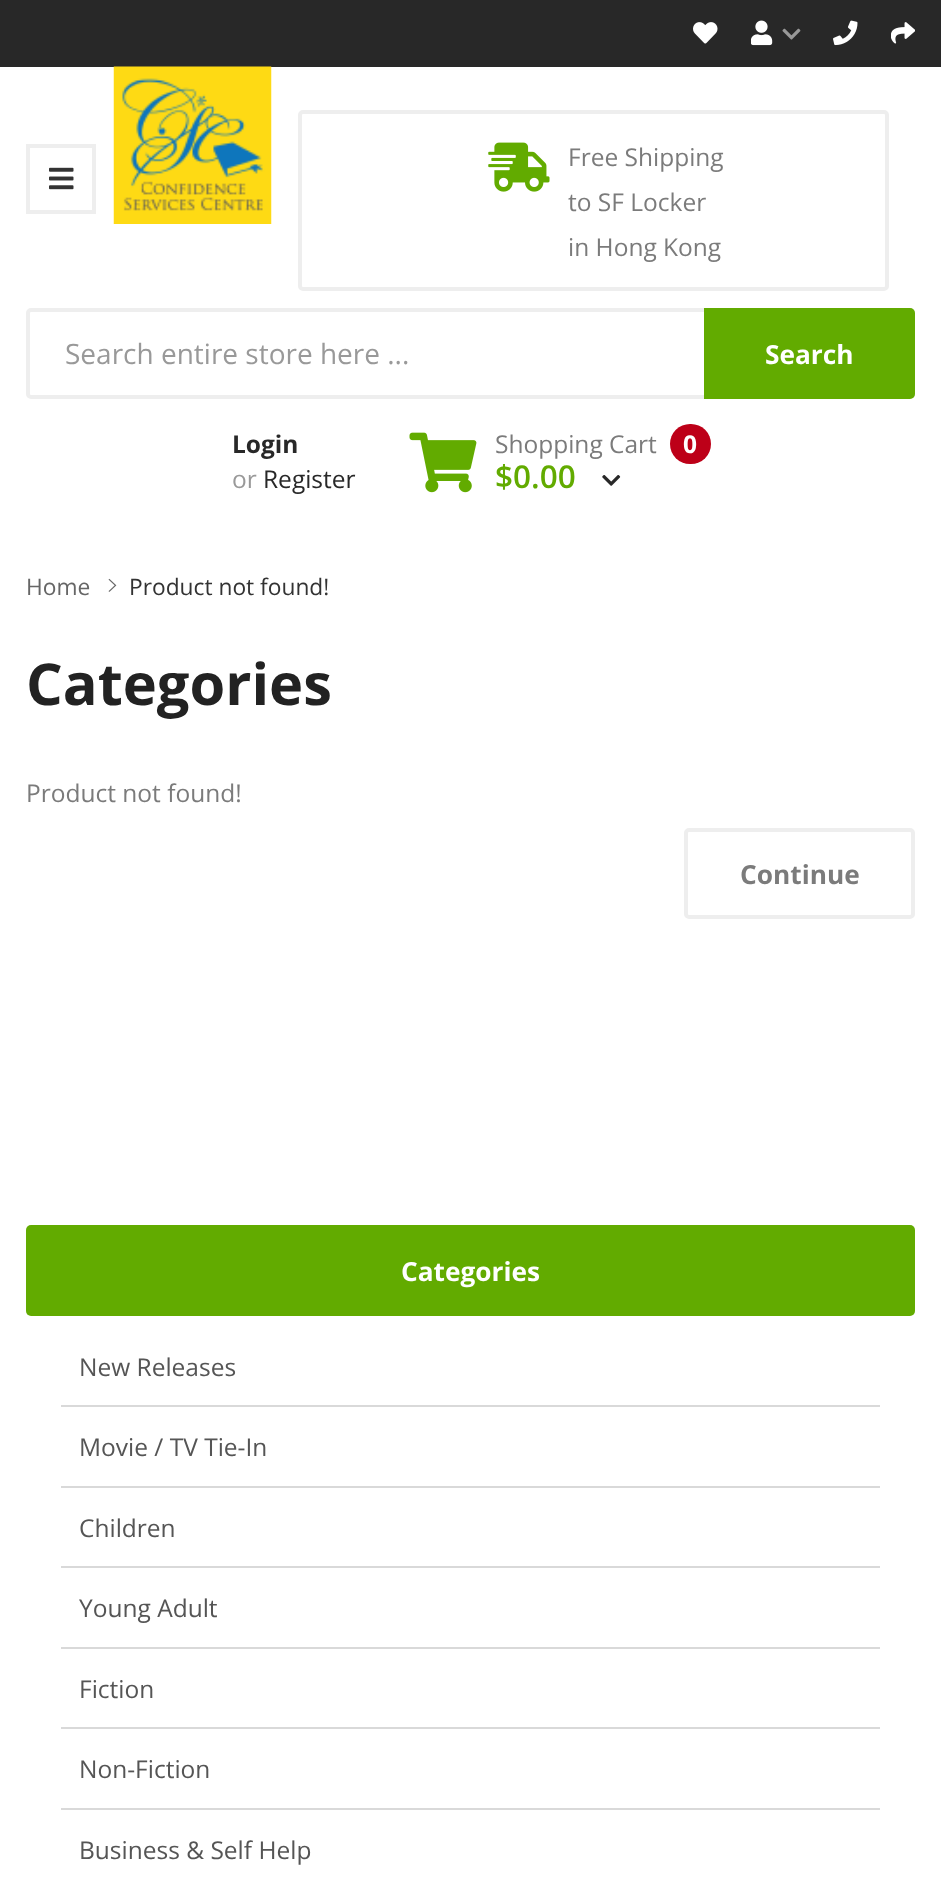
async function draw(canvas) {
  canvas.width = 941
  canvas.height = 1883
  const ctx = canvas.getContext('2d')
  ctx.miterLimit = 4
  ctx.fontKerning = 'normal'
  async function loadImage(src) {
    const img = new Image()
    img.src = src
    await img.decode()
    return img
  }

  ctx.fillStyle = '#fff'
  ctx.fillRect(0, 0, 941, 1883)
  ctx.fillStyle = '#282828'
  ctx.fillRect(0, 0, 941, 67)
  ctx.drawImage(await loadImage('image0.png'), 693, 22, 25, 22)
  ctx.drawImage(await loadImage('image1.png'), 751, 20, 22, 26)
  ctx.drawImage(await loadImage('image2.png'), 782, 28, 19, 12)
  ctx.drawImage(await loadImage('image3.png'), 833, 20, 25, 26)
  ctx.drawImage(await loadImage('image4.png'), 891, 22, 24, 22)
  ctx.strokeStyle = '#eee'
  ctx.lineWidth = 4
  ctx.strokeRect(28, 146, 66, 66)
  ctx.drawImage(await loadImage('image5.png'), 49, 167, 25, 23)
  ctx.drawImage(await loadImage('image6.png'), 113, 66, 159, 158)
  ctx.beginPath()
  ctx.roundRect(300, 112, 587, 177, 3)
  ctx.stroke()
  ctx.drawImage(await loadImage('image7.png'), 488, 142, 62, 50)
  ctx.font = '24.5px Open Sans'
  ctx.fillStyle = '#7b7b7b'
  ctx.fillText('Free Shipping', 568, 166)
  ctx.fillText('to SF Locker', 568, 211)
  ctx.fillText('in Hong Kong', 568, 256)
  ctx.beginPath()
  ctx.roundRect(28, 310, 885, 87, 3)
  ctx.stroke()
  ctx.font = '28px Open Sans'
  ctx.fillStyle = '#999'
  ctx.fillText('Search entire store here ...', 65, 364)
  ctx.fillStyle = '#62ab00'
  ctx.beginPath()
  ctx.roundRect(704, 308, 211, 91, [0, 5, 5, 0])
  ctx.fill()
  ctx.font = 'bold 26.25px Open Sans'
  ctx.fillStyle = '#fff'
  ctx.fillText('Search', 765, 364)
  ctx.font = 'bold 24.5px Open Sans'
  ctx.fillStyle = '#282828'
  ctx.fillText('Login', 232, 453)
  ctx.font = '24.5px Open Sans'
  ctx.fillStyle = '#999'
  ctx.fillText('or', 232, 488)
  ctx.fillStyle = '#282828'
  ctx.fillText('Register', 263, 488)
  ctx.drawImage(await loadImage('image8.png'), 409, 432, 68, 61)
  ctx.fillStyle = '#7b7b7b'
  ctx.fillText('Shopping Cart', 495, 453)
  ctx.fillStyle = '#bd0018'
  ctx.beginPath()
  ctx.roundRect(670, 424, 41, 40, 20)
  ctx.fill()
  ctx.font = 'bold 24.5px Open Sans'
  ctx.fillStyle = '#fff'
  ctx.fillText('0', 683, 453)
  ctx.font = '600 31.5px Open Sans'
  ctx.fillStyle = '#62ab00'
  ctx.fillText('$0.00', 495, 488)
  ctx.drawImage(await loadImage('image9.png'), 602, 475, 19, 11)
  ctx.font = '22.75px Open Sans'
  ctx.fillStyle = '#666'
  ctx.fillText('Home', 26, 595)
  ctx.drawImage(await loadImage('image10.png'), 108, 578, 9, 14)
  ctx.fillStyle = '#333'
  ctx.fillText('Product not found!', 129, 595)
  ctx.font = 'bold 57.75px Open Sans'
  ctx.fillStyle = '#222'
  ctx.fillText('Categories', 26, 705)
  ctx.font = '24.5px Open Sans'
  ctx.fillStyle = '#7b7b7b'
  ctx.fillText('Product not found!', 26, 802)
  ctx.beginPath()
  ctx.roundRect(686, 830, 227, 87, 3)
  ctx.stroke()
  ctx.font = 'bold 26.25px Open Sans'
  ctx.fillText('Continue', 740, 884)
  ctx.fillStyle = '#62ab00'
  ctx.beginPath()
  ctx.roundRect(26, 1225, 889, 91, 5)
  ctx.fill()
  ctx.fillStyle = '#fff'
  ctx.fillText('Categories', 401, 1281)
  ctx.fillStyle = '#d9d9d9'
  ctx.fillRect(61, 1405, 819, 2)
  ctx.font = '24.5px Open Sans'
  ctx.fillStyle = '#555'
  ctx.fillText('New Releases', 79, 1376)
  ctx.fillStyle = '#d9d9d9'
  ctx.fillRect(61, 1486, 819, 2)
  ctx.fillStyle = '#555'
  ctx.fillText('Movie / TV Tie-In', 79, 1456)
  ctx.fillStyle = '#d9d9d9'
  ctx.fillRect(61, 1566, 819, 2)
  ctx.fillStyle = '#555'
  ctx.fillText('Children', 79, 1537)
  ctx.fillStyle = '#d9d9d9'
  ctx.fillRect(61, 1647, 819, 2)
  ctx.fillStyle = '#555'
  ctx.fillText('Young Adult', 79, 1617)
  ctx.fillStyle = '#d9d9d9'
  ctx.fillRect(61, 1727, 819, 2)
  ctx.fillStyle = '#555'
  ctx.fillText('Fiction', 79, 1698)
  ctx.fillStyle = '#d9d9d9'
  ctx.fillRect(61, 1808, 819, 2)
  ctx.fillStyle = '#555'
  ctx.fillText('Non-Fiction', 79, 1778)
  ctx.fillText('Business & Self Help', 79, 1859)
}

draw(document.querySelector('canvas'))
